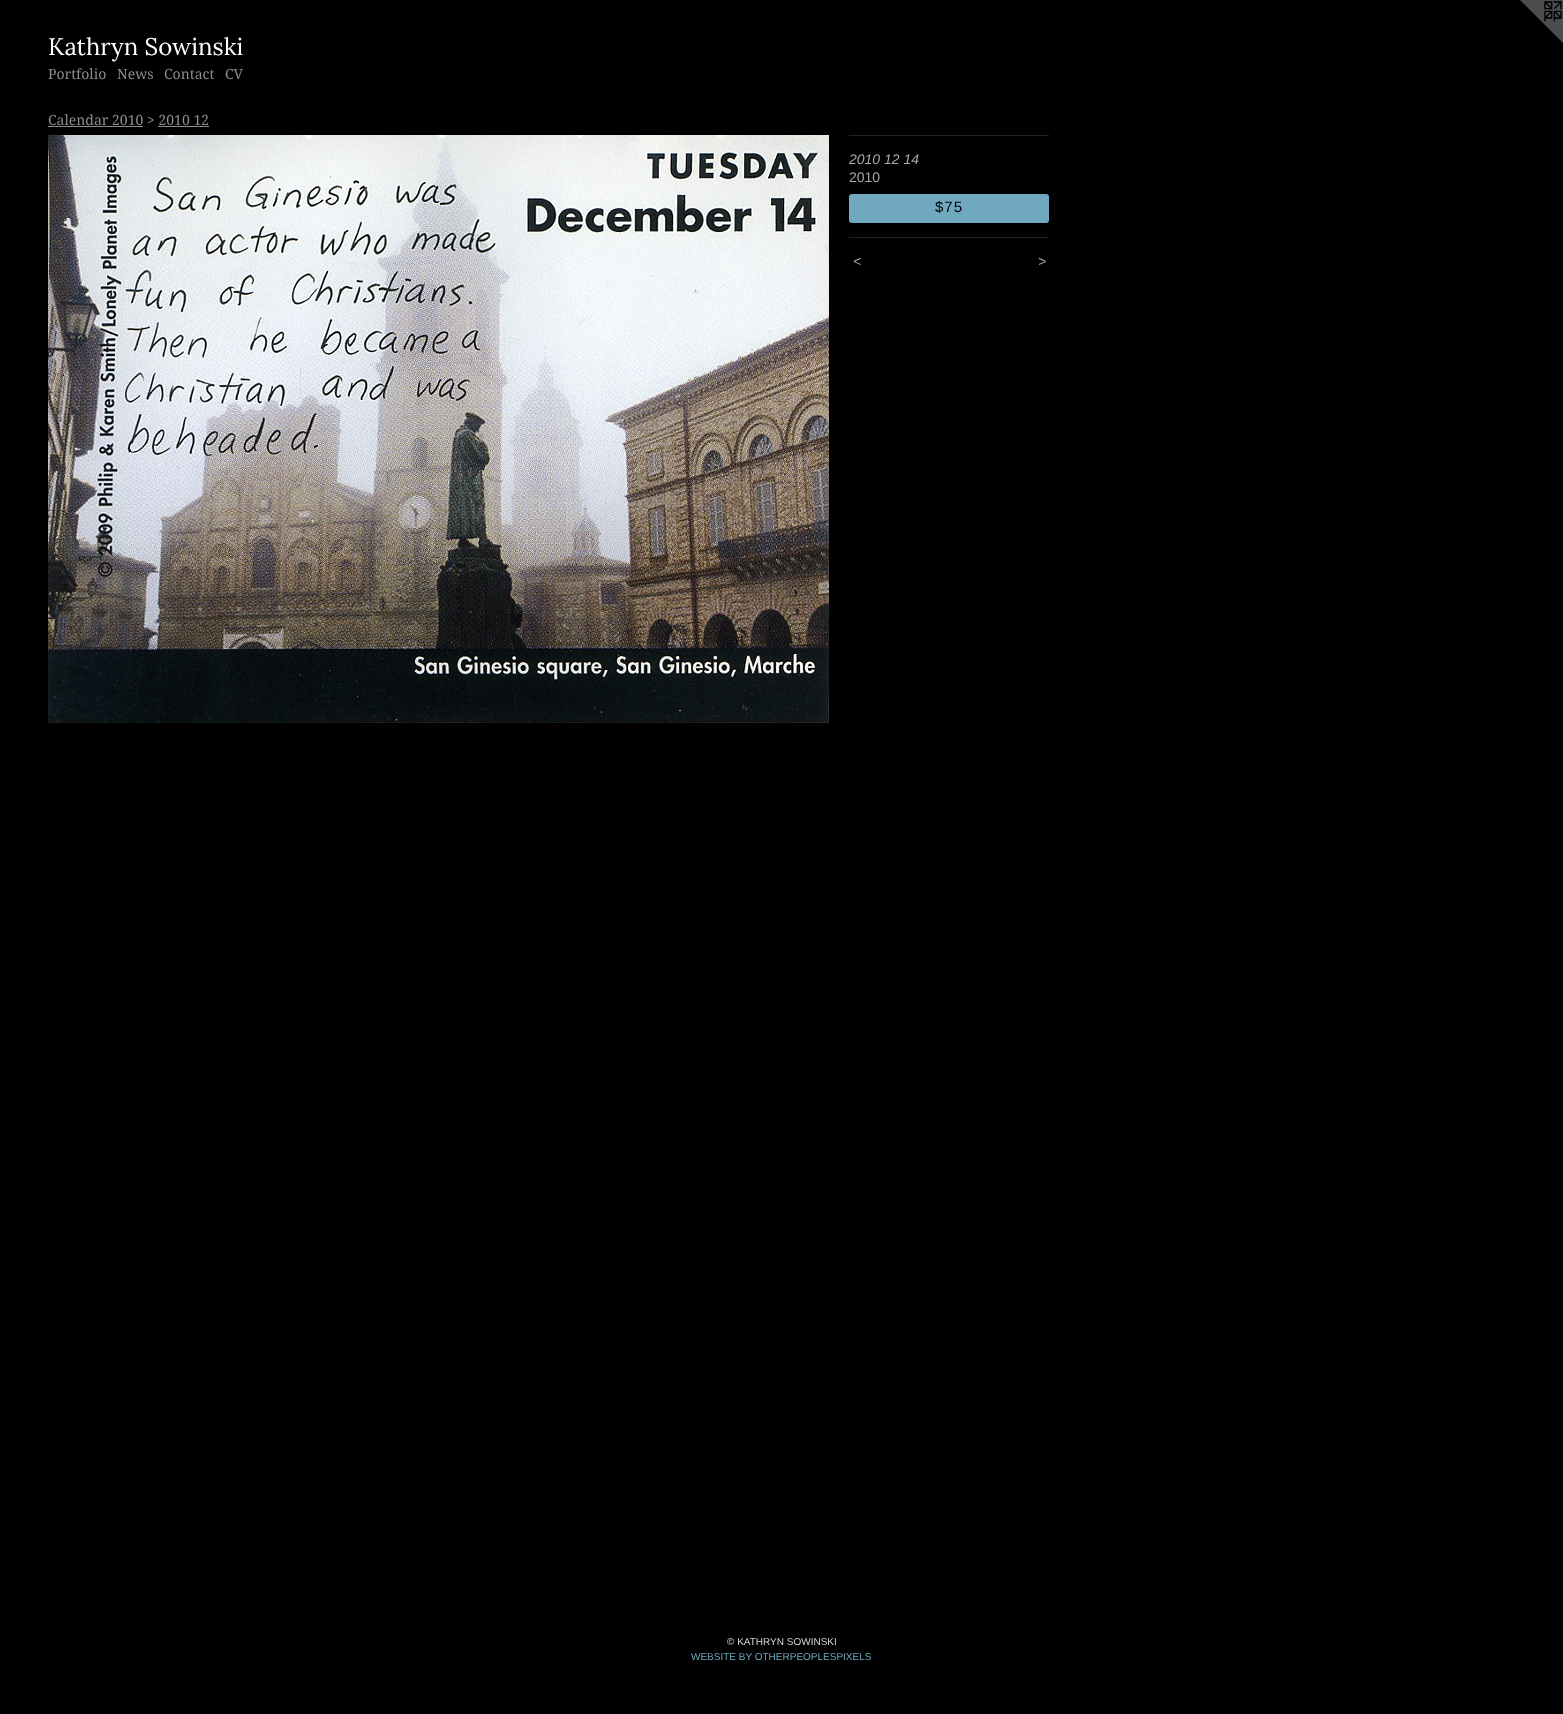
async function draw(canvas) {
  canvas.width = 1563
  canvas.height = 1714
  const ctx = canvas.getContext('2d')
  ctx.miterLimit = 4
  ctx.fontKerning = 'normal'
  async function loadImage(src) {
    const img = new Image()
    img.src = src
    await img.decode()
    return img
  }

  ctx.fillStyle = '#000'
  ctx.fillRect(0, 0, 1563, 1714)
  ctx.drawImage(await loadImage('image0.png'), 1520, 0, 43, 43)
  ctx.font = '24px Lora'
  ctx.fillStyle = '#fff'
  ctx.fillText('Kathryn Sowinski', 48, 55)
  ctx.font = '14px Droid Serif'
  ctx.fillStyle = '#8c8c8c'
  ctx.fillText('Portfolio', 48, 79)
  ctx.fillText('News', 117, 79)
  ctx.fillText('Contact', 164, 79)
  ctx.fillText('CV', 225, 79)
  ctx.fillText('Calendar 2010 > 2010 12', 48, 125)
  ctx.fillRect(48, 126, 95, 1)
  ctx.fillRect(158, 126, 51, 1)
  ctx.drawImage(await loadImage('image1.png'), 48, 135, 781, 588)
  ctx.fillStyle = '#222'
  ctx.fillRect(849, 135, 200, 1)
  ctx.font = 'italic 14px Liberation Sans'
  ctx.fillStyle = '#a8a8a8'
  ctx.fillText('2010 12 14', 849, 164)
  ctx.font = '14px Liberation Sans'
  ctx.fillText('2010', 849, 182)
  ctx.fillStyle = '#70a8c0'
  ctx.beginPath()
  ctx.roundRect(849, 194, 200, 29, 3)
  ctx.fill()
  ctx.letterSpacing = '1px'
  ctx.font = '15px Liberation Sans'
  ctx.fillStyle = '#000'
  ctx.fillText('$75', 935, 212)
  ctx.fillStyle = '#222'
  ctx.fillRect(849, 237, 200, 1)
  ctx.font = 'italic 14px Liberation Sans'
  ctx.fillStyle = '#a8a8a8'
  ctx.fillText('<', 853, 266)
  ctx.fillText('>', 1038, 266)
  ctx.letterSpacing = '0px'
  ctx.font = '10px Liberation Sans'
  ctx.fillStyle = '#d6d6d6'
  ctx.fillText('© KATHRYN SOWINSKI', 727, 1645)
  ctx.fillStyle = '#70a8c0'
  ctx.fillText('WEBSITE BY OTHERPEOPLESPIXELS', 691, 1660)
}

draw(document.querySelector('canvas'))
